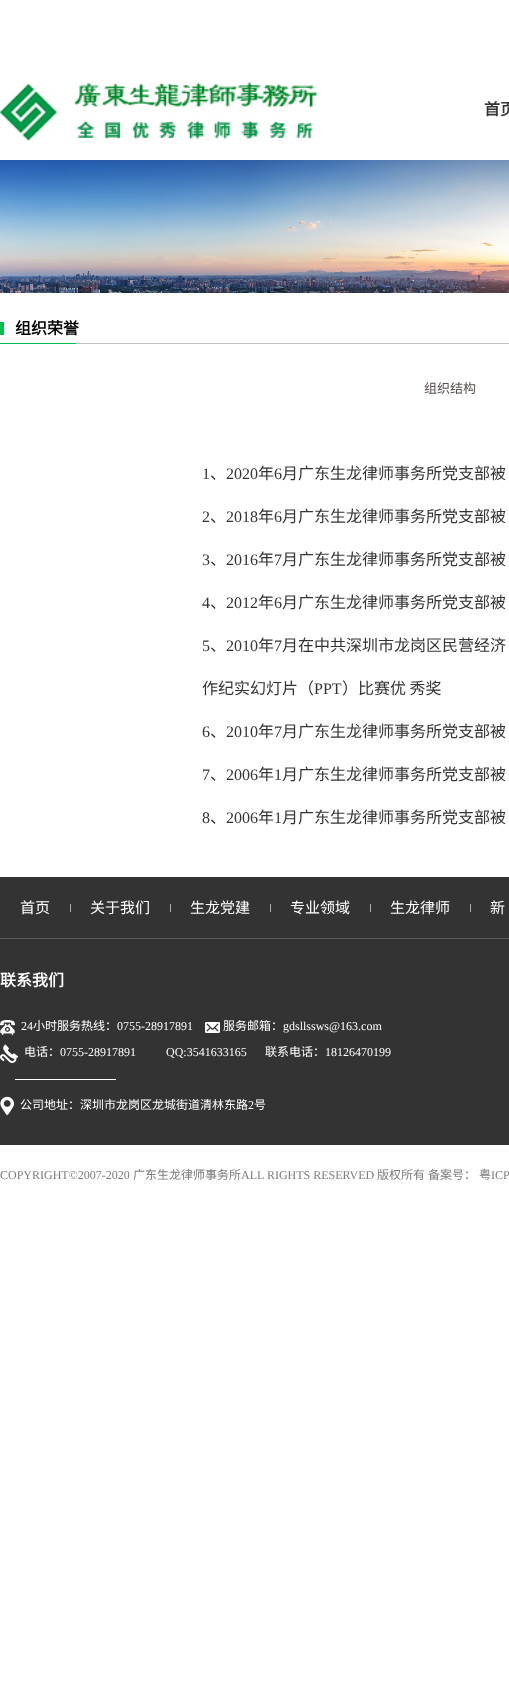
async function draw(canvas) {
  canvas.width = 509
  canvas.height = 1703
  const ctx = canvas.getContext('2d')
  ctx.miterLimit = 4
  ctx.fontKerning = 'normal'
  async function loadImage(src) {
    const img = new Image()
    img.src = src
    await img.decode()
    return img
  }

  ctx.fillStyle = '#fff'
  ctx.fillRect(0, 0, 509, 1703)
  ctx.drawImage(await loadImage('image0.png'), 0, 82, 318, 59)
  ctx.font = 'bold 16px Noto Sans CJK SC'
  ctx.fillStyle = '#333'
  ctx.fillText('首页', 484, 115)
  ctx.drawImage(await loadImage('image1.png'), 0, 160, 509, 133)
  ctx.drawImage(await loadImage('image2.png'), 0, 322, 509, 22)
  ctx.fillStyle = '#000'
  ctx.fillText('组织荣誉', 15, 334)
  ctx.font = '13px Noto Sans CJK SC'
  ctx.fillStyle = '#57514f'
  ctx.fillText('组织结构', 424, 393)
  ctx.font = '16px Liberation Serif'
  ctx.fillStyle = '#333'
  ctx.fillText('1', 202, 479)
  ctx.font = '16px Noto Sans CJK SC'
  ctx.fillText('、', 210, 479)
  ctx.font = '16px Liberation Serif'
  ctx.fillText('2020', 226, 479)
  ctx.font = '16px Noto Sans CJK SC'
  ctx.fillText('年', 258, 479)
  ctx.font = '16px Liberation Serif'
  ctx.fillText('6', 274, 479)
  ctx.font = '16px Noto Sans CJK SC'
  ctx.fillText('月广东生龙律师事务所党支部被', 282, 479)
  ctx.font = '16px Liberation Serif'
  ctx.fillText('2', 202, 522)
  ctx.font = '16px Noto Sans CJK SC'
  ctx.fillText('、', 210, 522)
  ctx.font = '16px Liberation Serif'
  ctx.fillText('2018', 226, 522)
  ctx.font = '16px Noto Sans CJK SC'
  ctx.fillText('年', 258, 522)
  ctx.font = '16px Liberation Serif'
  ctx.fillText('6', 274, 522)
  ctx.font = '16px Noto Sans CJK SC'
  ctx.fillText('月广东生龙律师事务所党支部被', 282, 522)
  ctx.font = '16px Liberation Serif'
  ctx.fillText('3', 202, 565)
  ctx.font = '16px Noto Sans CJK SC'
  ctx.fillText('、', 210, 565)
  ctx.font = '16px Liberation Serif'
  ctx.fillText('2016', 226, 565)
  ctx.font = '16px Noto Sans CJK SC'
  ctx.fillText('年', 258, 565)
  ctx.font = '16px Liberation Serif'
  ctx.fillText('7', 274, 565)
  ctx.font = '16px Noto Sans CJK SC'
  ctx.fillText('月广东生龙律师事务所党支部被', 282, 565)
  ctx.font = '16px Liberation Serif'
  ctx.fillText('4', 202, 608)
  ctx.font = '16px Noto Sans CJK SC'
  ctx.fillText('、', 210, 608)
  ctx.font = '16px Liberation Serif'
  ctx.fillText('2012', 226, 608)
  ctx.font = '16px Noto Sans CJK SC'
  ctx.fillText('年', 258, 608)
  ctx.font = '16px Liberation Serif'
  ctx.fillText('6', 274, 608)
  ctx.font = '16px Noto Sans CJK SC'
  ctx.fillText('月广东生龙律师事务所党支部被', 282, 608)
  ctx.font = '16px Liberation Serif'
  ctx.fillText('5', 202, 651)
  ctx.font = '16px Noto Sans CJK SC'
  ctx.fillText('、', 210, 651)
  ctx.font = '16px Liberation Serif'
  ctx.fillText('2010', 226, 651)
  ctx.font = '16px Noto Sans CJK SC'
  ctx.fillText('年', 258, 651)
  ctx.font = '16px Liberation Serif'
  ctx.fillText('7', 274, 651)
  ctx.font = '16px Noto Sans CJK SC'
  ctx.fillText('月在中共深圳市龙岗区民营经济', 282, 651)
  ctx.fillText('作纪实幻灯片（', 202, 694)
  ctx.font = '16px Liberation Serif'
  ctx.fillText('PPT', 314, 694)
  ctx.font = '16px Noto Sans CJK SC'
  ctx.fillText('）比赛优 秀奖', 342, 694)
  ctx.font = '16px Liberation Serif'
  ctx.fillText('6', 202, 737)
  ctx.font = '16px Noto Sans CJK SC'
  ctx.fillText('、', 210, 737)
  ctx.font = '16px Liberation Serif'
  ctx.fillText('2010', 226, 737)
  ctx.font = '16px Noto Sans CJK SC'
  ctx.fillText('年', 258, 737)
  ctx.font = '16px Liberation Serif'
  ctx.fillText('7', 274, 737)
  ctx.font = '16px Noto Sans CJK SC'
  ctx.fillText('月广东生龙律师事务所党支部被', 282, 737)
  ctx.font = '16px Liberation Serif'
  ctx.fillText('7', 202, 780)
  ctx.font = '16px Noto Sans CJK SC'
  ctx.fillText('、', 210, 780)
  ctx.font = '16px Liberation Serif'
  ctx.fillText('2006', 226, 780)
  ctx.font = '16px Noto Sans CJK SC'
  ctx.fillText('年', 258, 780)
  ctx.font = '16px Liberation Serif'
  ctx.fillText('1', 274, 780)
  ctx.font = '16px Noto Sans CJK SC'
  ctx.fillText('月广东生龙律师事务所党支部被', 282, 780)
  ctx.font = '16px Liberation Serif'
  ctx.fillText('8', 202, 823)
  ctx.font = '16px Noto Sans CJK SC'
  ctx.fillText('、', 210, 823)
  ctx.font = '16px Liberation Serif'
  ctx.fillText('2006', 226, 823)
  ctx.font = '16px Noto Sans CJK SC'
  ctx.fillText('年', 258, 823)
  ctx.font = '16px Liberation Serif'
  ctx.fillText('1', 274, 823)
  ctx.font = '16px Noto Sans CJK SC'
  ctx.fillText('月广东生龙律师事务所党支部被', 282, 823)
  ctx.fillRect(0, 877, 509, 61)
  ctx.fillStyle = '#5c5c5c'
  ctx.fillRect(0, 938, 509, 1)
  ctx.font = '15px Noto Sans CJK SC'
  ctx.fillStyle = '#fff'
  ctx.fillText('首页', 20, 913)
  ctx.fillStyle = '#adadad'
  ctx.fillRect(70, 904, 1, 8)
  ctx.fillStyle = '#fff'
  ctx.fillText('关于我们', 90, 913)
  ctx.fillStyle = '#adadad'
  ctx.fillRect(170, 904, 1, 8)
  ctx.fillStyle = '#fff'
  ctx.fillText('生龙党建', 190, 913)
  ctx.fillStyle = '#adadad'
  ctx.fillRect(270, 904, 1, 8)
  ctx.fillStyle = '#fff'
  ctx.fillText('专业领域', 290, 913)
  ctx.fillStyle = '#adadad'
  ctx.fillRect(370, 904, 1, 8)
  ctx.fillStyle = '#fff'
  ctx.fillText('生龙律师', 390, 913)
  ctx.fillStyle = '#adadad'
  ctx.fillRect(470, 904, 1, 8)
  ctx.fillStyle = '#fff'
  ctx.fillText('新', 490, 913)
  ctx.fillStyle = '#333'
  ctx.fillRect(0, 939, 509, 206)
  ctx.font = 'bold 16px Noto Sans CJK SC'
  ctx.fillStyle = '#fff'
  ctx.fillText('联系我们', 0, 986)
  ctx.drawImage(await loadImage('image3.png'), 0, 1020, 15, 15)
  ctx.font = '12px Liberation Serif'
  ctx.fillText('24', 21, 1030)
  ctx.font = '12px Noto Sans CJK SC'
  ctx.fillText('小时服务热线：', 33, 1030)
  ctx.font = '12px Liberation Serif'
  ctx.fillText('0755-28917891', 117, 1030)
  ctx.drawImage(await loadImage('image4.png'), 205, 1022, 15, 11)
  ctx.font = '12px Noto Sans CJK SC'
  ctx.fillText('服务邮箱：', 223, 1030)
  ctx.font = '12px Liberation Serif'
  ctx.fillText('gdsllssws@163.com', 283, 1030)
  ctx.drawImage(await loadImage('image5.png'), 0, 1044, 18, 19)
  ctx.font = '12px Noto Sans CJK SC'
  ctx.fillText('电话：', 24, 1056)
  ctx.font = '12px Liberation Serif'
  ctx.fillText('0755-28917891          QQ:3541633165', 60, 1056)
  ctx.font = '12px Noto Sans CJK SC'
  ctx.fillText('联系电话：', 265, 1056)
  ctx.font = '12px Liberation Serif'
  ctx.fillText('18126470199', 325, 1056)
  ctx.fillRect(15, 1079, 101, 1)
  ctx.drawImage(await loadImage('image6.png'), 0, 1096, 14, 20)
  ctx.font = '12px Noto Sans CJK SC'
  ctx.fillText('公司地址：深圳市龙岗区龙城街道清林东路', 20, 1109)
  ctx.font = '12px Liberation Serif'
  ctx.fillText('2', 248, 1109)
  ctx.font = '12px Noto Sans CJK SC'
  ctx.fillText('号', 254, 1109)
  ctx.font = '12px Liberation Serif'
  ctx.fillStyle = '#7c7c7c'
  ctx.fillText('COPYRIGHT©2007-2020', 0, 1179)
  ctx.font = '12px Noto Sans CJK SC'
  ctx.fillText('广东生龙律师事务所', 133, 1179)
  ctx.font = '12px Liberation Serif'
  ctx.fillText('ALL RIGHTS RESERVED', 241, 1179)
  ctx.font = '12px Noto Sans CJK SC'
  ctx.fillText('版权所有', 377, 1179)
  ctx.fillText('备案号：', 428, 1179)
  ctx.fillText('粤', 479, 1179)
  ctx.font = '12px Liberation Serif'
  ctx.fillText('ICP', 491, 1179)
}

draw(document.querySelector('canvas'))
